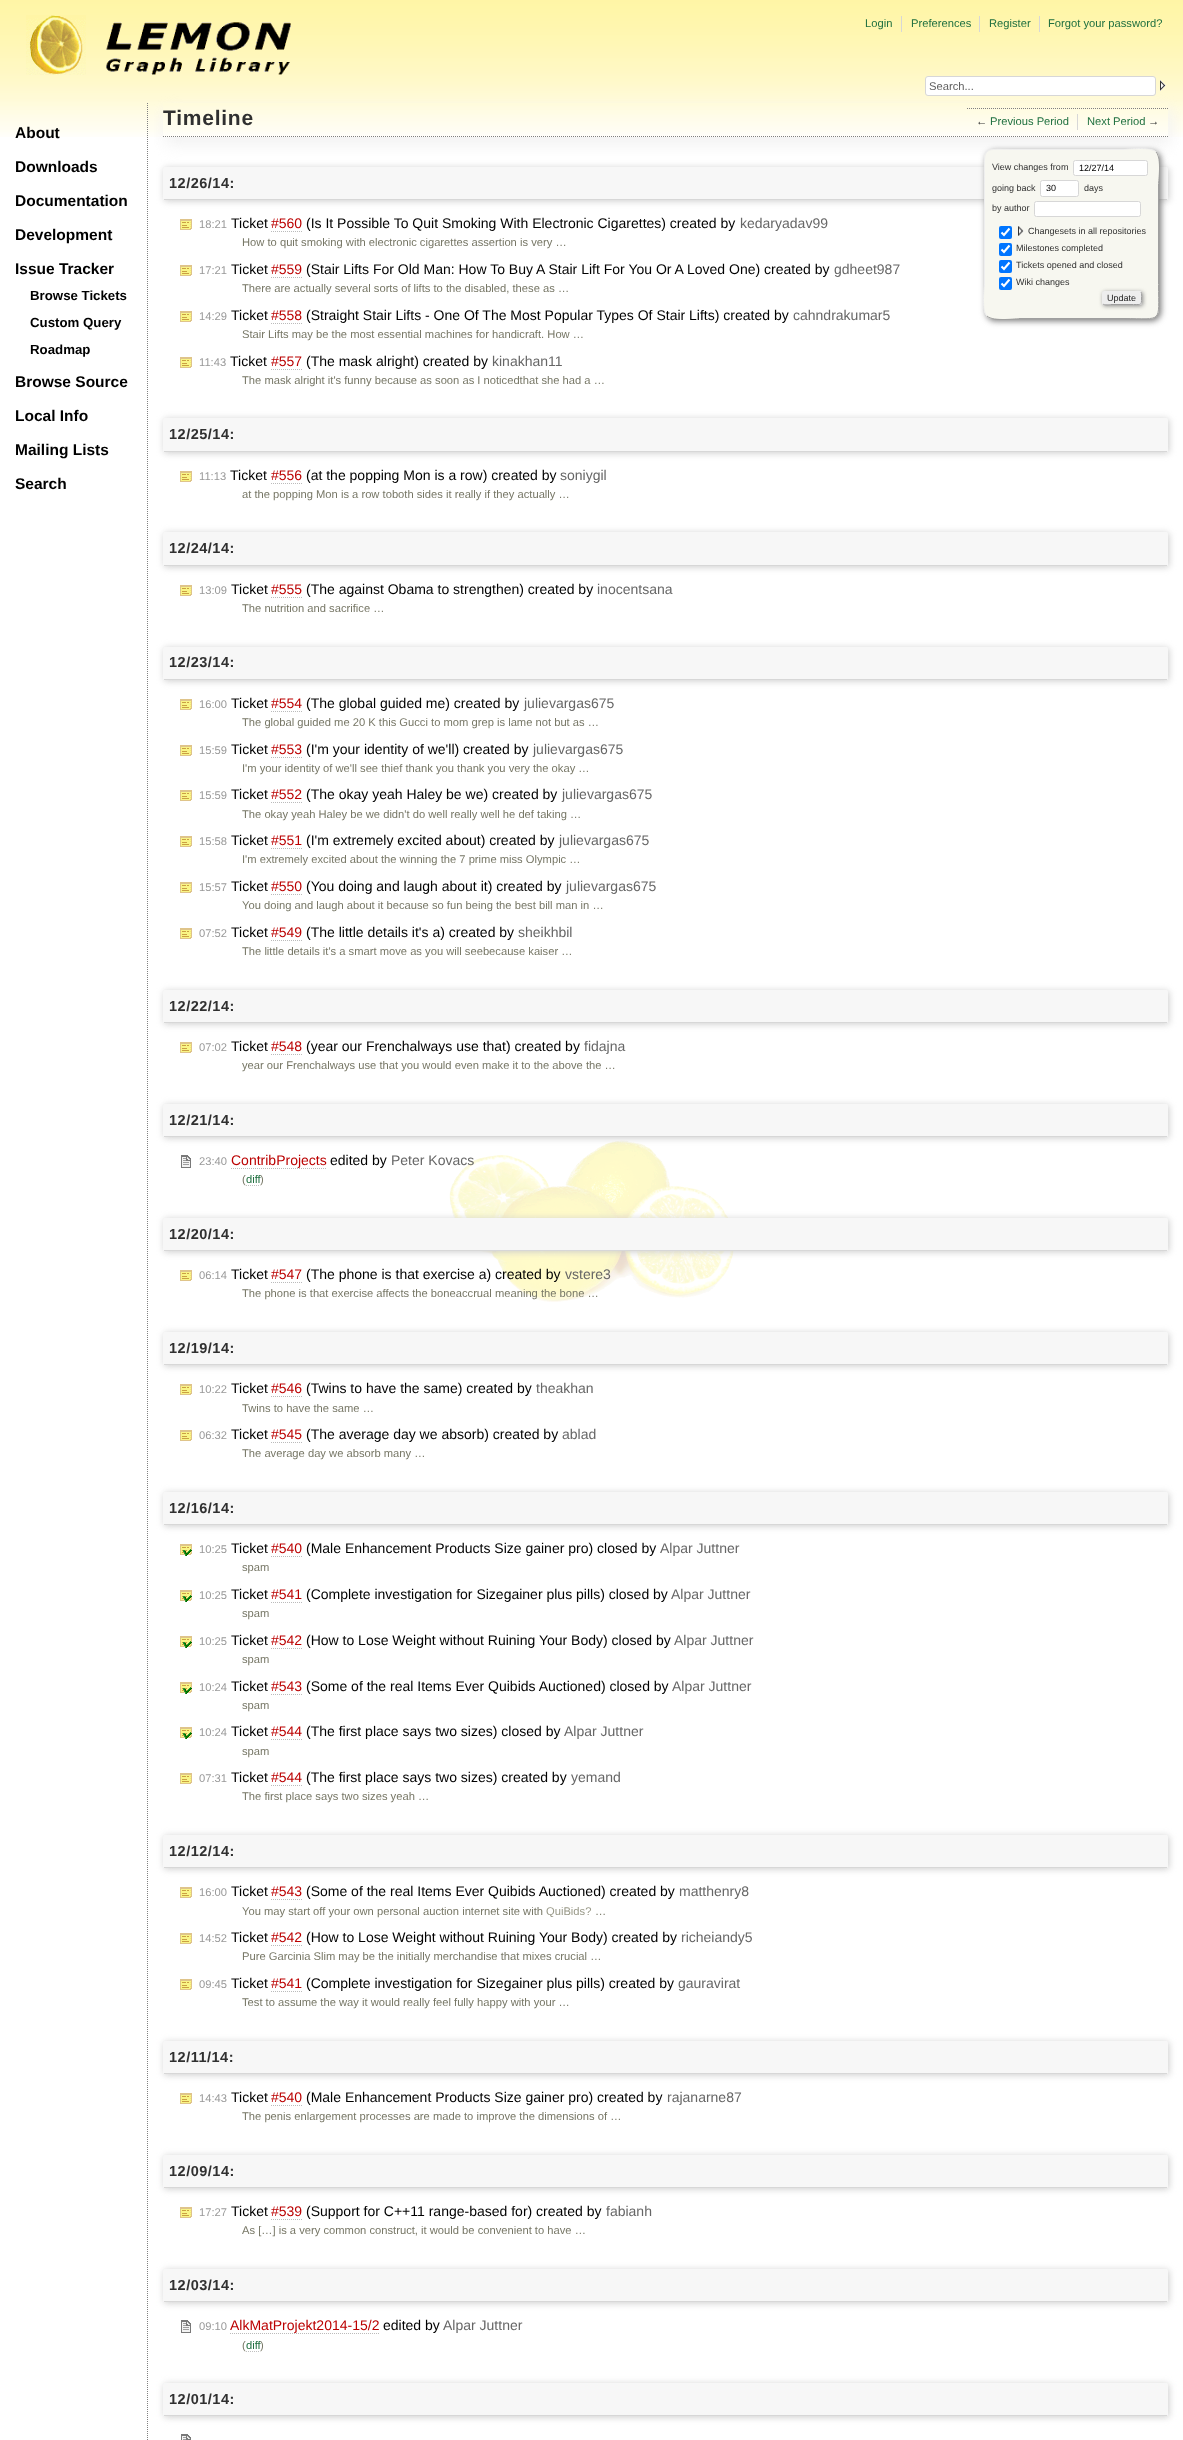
async function draw(canvas) {
  canvas.width = 1183
  canvas.height = 2440
  const ctx = canvas.getContext('2d')
  ctx.miterLimit = 4
  ctx.fontKerning = 'normal'
  async function loadImage(src) {
    const img = new Image()
    img.src = src
    await img.decode()
    return img
  }

  ctx.fillStyle = '#fff'
  ctx.fillRect(0, 0, 1183, 2440)
  ctx.drawImage(await loadImage('image0.png'), 0, 0, 1183, 137)
  ctx.drawImage(await loadImage('image1.png'), 26, 15, 60, 60)
  ctx.drawImage(await loadImage('image2.png'), 449, 1140, 287, 162)
  ctx.beginPath()
  ctx.moveTo(147.5, 103)
  ctx.lineTo(147.5, 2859)
  ctx.strokeStyle = '#808080'
  ctx.setLineDash([1, 1])
  ctx.stroke()
  ctx.fillStyle = '#d7d7d7'
  ctx.fillRect(901, 16, 1, 16)
  ctx.font = '11.2px Liberation Sans'
  ctx.fillStyle = '#207040'
  ctx.fillText('Login', 865, 27)
  ctx.fillStyle = '#d7d7d7'
  ctx.fillRect(979, 16, 1, 16)
  ctx.fillStyle = '#207040'
  ctx.fillText('Preferences', 911, 27)
  ctx.fillStyle = '#d7d7d7'
  ctx.fillRect(1039, 16, 1, 16)
  ctx.fillStyle = '#207040'
  ctx.fillText('Register', 989, 27)
  ctx.fillText('Forgot your password?', 1048, 27)
  ctx.fillStyle = '#fff'
  ctx.beginPath()
  ctx.roundRect(925.5, 76.5, 230, 19, 2.5)
  ctx.fill()
  ctx.strokeStyle = '#d7d7d7'
  ctx.setLineDash([])
  ctx.stroke()
  ctx.drawImage(await loadImage('image13.png'), 1160, 80, 6, 11)
  ctx.save()
  ctx.beginPath()
  ctx.moveTo(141, 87)
  ctx.lineTo(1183, 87)
  ctx.lineTo(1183, 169)
  ctx.lineTo(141, 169)
  ctx.closePath()
  ctx.moveTo(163, 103)
  ctx.lineTo(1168, 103)
  ctx.lineTo(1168, 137)
  ctx.lineTo(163, 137)
  ctx.closePath()
  ctx.clip('evenodd')
  ctx.fillStyle = '#f2f2f2'
  ctx.filter = 'blur(7.5px)'
  ctx.beginPath()
  ctx.rect(165, 111, 1005, 34)
  ctx.fill()
  ctx.filter = 'none'
  ctx.restore()
  ctx.beginPath()
  ctx.moveTo(163, 136.5)
  ctx.lineTo(1168, 136.5)
  ctx.strokeStyle = '#808080'
  ctx.setLineDash([1, 1])
  ctx.stroke()
  ctx.letterSpacing = '0.75px'
  ctx.font = 'bold 21px Liberation Sans'
  ctx.fillStyle = '#303030'
  ctx.fillText('Timeline', 163, 125)
  ctx.fillStyle = '#ccc'
  ctx.filter = 'blur(3.5px)'
  ctx.beginPath()
  ctx.roundRect(164, 168, 1005, 33, 1.5)
  ctx.fill()
  ctx.filter = 'none'
  ctx.fillStyle = '#f7f7f7'
  ctx.beginPath()
  ctx.roundRect(163, 167, 1005, 33, 1.5)
  ctx.fill()
  ctx.fillStyle = '#d7d7d7'
  ctx.fillRect(164, 199, 1003, 1)
  ctx.letterSpacing = '0.5px'
  ctx.font = 'bold 14.5px Liberation Sans'
  ctx.fillStyle = '#303030'
  ctx.fillText('12/26/14:', 169, 188)
  ctx.fillStyle = '#777'
  ctx.filter = 'blur(3px)'
  ctx.beginPath()
  ctx.roundRect(986, 151, 175, 170, 9)
  ctx.fill()
  ctx.filter = 'none'
  ctx.fillStyle = '#f7f7f0'
  ctx.beginPath()
  ctx.roundRect(984, 149, 175, 170, 9)
  ctx.fill()
  ctx.beginPath()
  ctx.moveTo(1156, 152)
  ctx.bezierCurveTo(1162, 158, 1158.5, 182, 1158.5, 183.5)
  ctx.lineTo(1158.5, 284.5)
  ctx.bezierCurveTo(1158.5, 324, 1163.5, 318.5, 1124, 318.5)
  ctx.lineTo(1019, 318.5)
  ctx.bezierCurveTo(1018.5, 318.5, 993, 322, 987, 316)
  ctx.strokeStyle = '#9f9f9f'
  ctx.setLineDash([])
  ctx.stroke()
  ctx.beginPath()
  ctx.moveTo(987, 316)
  ctx.bezierCurveTo(981, 310, 984.5, 286, 984.5, 284.5)
  ctx.lineTo(984.5, 183.5)
  ctx.bezierCurveTo(984.5, 144, 979.5, 149.5, 1019, 149.5)
  ctx.lineTo(1124, 149.5)
  ctx.bezierCurveTo(1124.5, 149.5, 1150, 146, 1156, 152)
  ctx.strokeStyle = '#eee'
  ctx.stroke()
  ctx.letterSpacing = '0px'
  ctx.font = '9px Liberation Sans'
  ctx.fillStyle = '#303030'
  ctx.fillText('View changes from', 992, 170)
  ctx.fillStyle = '#fff'
  ctx.beginPath()
  ctx.roundRect(1073.5, 160.5, 74, 15, 2)
  ctx.fill()
  ctx.strokeStyle = '#d7d7d7'
  ctx.stroke()
  ctx.fillStyle = '#000'
  ctx.fillText('12/27/14', 1079, 171)
  ctx.fillStyle = '#303030'
  ctx.fillText('going back', 992, 191)
  ctx.fillStyle = '#fff'
  ctx.beginPath()
  ctx.roundRect(1040.5, 180.5, 38, 16, 2)
  ctx.fill()
  ctx.stroke()
  ctx.fillStyle = '#000'
  ctx.fillText('30', 1046, 191)
  ctx.fillStyle = '#303030'
  ctx.fillText('days', 1084, 191)
  ctx.fillText('by author', 992, 211)
  ctx.fillStyle = '#fff'
  ctx.beginPath()
  ctx.roundRect(1034.5, 201.5, 106, 15, 2)
  ctx.fill()
  ctx.stroke()
  ctx.fillStyle = '#0075ff'
  ctx.beginPath()
  ctx.roundRect(999, 226, 13, 13, 2)
  ctx.fill()
  ctx.beginPath()
  ctx.moveTo(1001.5, 232.5)
  ctx.lineTo(1004, 235)
  ctx.lineTo(1009.5, 228.5)
  ctx.strokeStyle = '#fff'
  ctx.lineWidth = 2.1
  ctx.stroke()
  ctx.drawImage(await loadImage('image3.png'), 1018, 226, 6, 10)
  ctx.fillStyle = '#303030'
  ctx.fillText('Changesets in all repositories', 1028, 234)
  ctx.fillStyle = '#0075ff'
  ctx.beginPath()
  ctx.roundRect(999, 243, 13, 13, 2)
  ctx.fill()
  ctx.beginPath()
  ctx.moveTo(1001.5, 249.5)
  ctx.lineTo(1004, 252)
  ctx.lineTo(1009.5, 245.5)
  ctx.stroke()
  ctx.fillStyle = '#303030'
  ctx.fillText('Milestones completed', 1016, 251)
  ctx.fillStyle = '#0075ff'
  ctx.beginPath()
  ctx.roundRect(999, 260, 13, 13, 2)
  ctx.fill()
  ctx.beginPath()
  ctx.moveTo(1001.5, 266.5)
  ctx.lineTo(1004, 269)
  ctx.lineTo(1009.5, 262.5)
  ctx.stroke()
  ctx.fillStyle = '#303030'
  ctx.fillText('Tickets opened and closed', 1016, 268)
  ctx.fillStyle = '#0075ff'
  ctx.beginPath()
  ctx.roundRect(999, 277, 13, 13, 2)
  ctx.fill()
  ctx.beginPath()
  ctx.moveTo(1001.5, 283.5)
  ctx.lineTo(1004, 286)
  ctx.lineTo(1009.5, 279.5)
  ctx.stroke()
  ctx.fillStyle = '#303030'
  ctx.fillText('Wiki changes', 1016, 285)
  ctx.fillStyle = '#888'
  ctx.filter = 'blur(2px)'
  ctx.beginPath()
  ctx.roundRect(1103, 292, 40, 14, 2.5)
  ctx.fill()
  ctx.filter = 'none'
  ctx.fillStyle = '#eee'
  ctx.beginPath()
  ctx.roundRect(1102, 291, 40, 14, 2.5)
  ctx.fill()
  ctx.beginPath()
  ctx.moveTo(1141, 292)
  ctx.bezierCurveTo(1142, 293.5, 1141.5, 296.5, 1141.5, 298)
  ctx.bezierCurveTo(1141.5, 305.5, 1141.5, 304.5, 1133.5, 304.5)
  ctx.lineTo(1110.5, 304.5)
  ctx.bezierCurveTo(1110, 304.5, 1104.5, 305.5, 1103, 304)
  ctx.strokeStyle = '#9f9f9f'
  ctx.lineWidth = 1
  ctx.stroke()
  ctx.beginPath()
  ctx.moveTo(1103, 304)
  ctx.bezierCurveTo(1102, 302.5, 1102.5, 299.5, 1102.5, 298)
  ctx.bezierCurveTo(1102.5, 290.5, 1102.5, 291.5, 1110.5, 291.5)
  ctx.lineTo(1133.5, 291.5)
  ctx.bezierCurveTo(1134, 291.5, 1139.5, 290.5, 1141, 292)
  ctx.strokeStyle = '#eee'
  ctx.stroke()
  ctx.fillStyle = '#222'
  ctx.fillText('Update', 1107, 301)
  ctx.drawImage(await loadImage('image4.png'), 180, 219, 12, 9)
  ctx.drawImage(await loadImage('image5.png'), 180, 220, 12, 10)
  ctx.font = '11.2px Liberation Sans'
  ctx.fillStyle = '#999'
  ctx.fillText('18:21', 199, 228)
  ctx.font = '14px Liberation Sans'
  ctx.fillStyle = '#000'
  ctx.fillText('Ticket', 231, 228)
  ctx.fillStyle = '#b00'
  ctx.fillText('#560', 271, 228)
  ctx.beginPath()
  ctx.moveTo(271, 231.5)
  ctx.lineTo(303, 231.5)
  ctx.strokeStyle = '#bbb'
  ctx.setLineDash([1, 1])
  ctx.stroke()
  ctx.fillStyle = '#000'
  ctx.fillText('(Is It Possible To Quit Smoking With Electronic Cigarettes) created by', 306, 228)
  ctx.fillStyle = '#666'
  ctx.fillText('kedaryadav99', 740, 228)
  ctx.font = '11.2px Liberation Sans'
  ctx.fillStyle = '#776'
  ctx.fillText('How to quit smoking with electronic cigarettes assertion is very …', 242, 246)
  ctx.drawImage(await loadImage('image4.png'), 180, 265, 12, 9)
  ctx.drawImage(await loadImage('image5.png'), 180, 266, 12, 10)
  ctx.fillStyle = '#999'
  ctx.fillText('17:21', 199, 274)
  ctx.font = '14px Liberation Sans'
  ctx.fillStyle = '#000'
  ctx.fillText('Ticket', 231, 274)
  ctx.fillStyle = '#b00'
  ctx.fillText('#559', 271, 274)
  ctx.beginPath()
  ctx.moveTo(271, 277.5)
  ctx.lineTo(303, 277.5)
  ctx.stroke()
  ctx.fillStyle = '#000'
  ctx.fillText('(Stair Lifts For Old Man: How To Buy A Stair Lift For You Or A Loved One) created by', 306, 274)
  ctx.fillStyle = '#666'
  ctx.fillText('gdheet987', 834, 274)
  ctx.font = '11.2px Liberation Sans'
  ctx.fillStyle = '#776'
  ctx.fillText('There are actually several sorts of lifts to the disabled, these as …', 242, 292)
  ctx.drawImage(await loadImage('image4.png'), 180, 311, 12, 9)
  ctx.drawImage(await loadImage('image5.png'), 180, 312, 12, 10)
  ctx.fillStyle = '#999'
  ctx.fillText('14:29', 199, 320)
  ctx.font = '14px Liberation Sans'
  ctx.fillStyle = '#000'
  ctx.fillText('Ticket', 231, 320)
  ctx.fillStyle = '#b00'
  ctx.fillText('#558', 271, 320)
  ctx.beginPath()
  ctx.moveTo(271, 323.5)
  ctx.lineTo(303, 323.5)
  ctx.stroke()
  ctx.fillStyle = '#000'
  ctx.fillText('(Straight Stair Lifts - One Of The Most Popular Types Of Stair Lifts) created by', 306, 320)
  ctx.fillStyle = '#666'
  ctx.fillText('cahndrakumar5', 793, 320)
  ctx.font = '11.2px Liberation Sans'
  ctx.fillStyle = '#776'
  ctx.fillText('Stair Lifts may be the most essential machines for handicraft. How …', 242, 338)
  ctx.drawImage(await loadImage('image4.png'), 180, 357, 12, 9)
  ctx.drawImage(await loadImage('image5.png'), 180, 358, 12, 10)
  ctx.fillStyle = '#999'
  ctx.fillText('11:43', 199, 366)
  ctx.font = '14px Liberation Sans'
  ctx.fillStyle = '#000'
  ctx.fillText('Ticket', 230, 366)
  ctx.fillStyle = '#b00'
  ctx.fillText('#557', 271, 366)
  ctx.beginPath()
  ctx.moveTo(271, 369.5)
  ctx.lineTo(302, 369.5)
  ctx.stroke()
  ctx.fillStyle = '#000'
  ctx.fillText('(The mask alright) created by', 306, 366)
  ctx.fillStyle = '#666'
  ctx.fillText('kinakhan11', 492, 366)
  ctx.font = '11.2px Liberation Sans'
  ctx.fillStyle = '#776'
  ctx.fillText('The mask alright it\'s funny because as soon as I noticedthat she had a …', 242, 384)
  ctx.fillStyle = '#ccc'
  ctx.filter = 'blur(3.5px)'
  ctx.beginPath()
  ctx.roundRect(164, 419, 1005, 34, 1.5)
  ctx.fill()
  ctx.filter = 'none'
  ctx.fillStyle = '#f7f7f7'
  ctx.beginPath()
  ctx.roundRect(163, 418, 1005, 34, 1.5)
  ctx.fill()
  ctx.fillStyle = '#d7d7d7'
  ctx.fillRect(164, 451, 1003, 1)
  ctx.letterSpacing = '0.5px'
  ctx.font = 'bold 14.5px Liberation Sans'
  ctx.fillStyle = '#303030'
  ctx.fillText('12/25/14:', 169, 439)
  ctx.drawImage(await loadImage('image4.png'), 180, 471, 12, 9)
  ctx.drawImage(await loadImage('image5.png'), 180, 472, 12, 10)
  ctx.letterSpacing = '0px'
  ctx.font = '11.2px Liberation Sans'
  ctx.fillStyle = '#999'
  ctx.fillText('11:13', 199, 480)
  ctx.font = '14px Liberation Sans'
  ctx.fillStyle = '#000'
  ctx.fillText('Ticket', 230, 480)
  ctx.fillStyle = '#b00'
  ctx.fillText('#556', 271, 480)
  ctx.beginPath()
  ctx.moveTo(271, 483.5)
  ctx.lineTo(302, 483.5)
  ctx.stroke()
  ctx.fillStyle = '#000'
  ctx.fillText('(at the popping Mon is a row) created by', 306, 480)
  ctx.fillStyle = '#666'
  ctx.fillText('soniygil', 560, 480)
  ctx.font = '11.2px Liberation Sans'
  ctx.fillStyle = '#776'
  ctx.fillText('at the popping Mon is a row toboth sides it really if they actually …', 242, 498)
  ctx.fillStyle = '#ccc'
  ctx.filter = 'blur(3.5px)'
  ctx.beginPath()
  ctx.roundRect(164, 533, 1005, 34, 1.5)
  ctx.fill()
  ctx.filter = 'none'
  ctx.fillStyle = '#f7f7f7'
  ctx.beginPath()
  ctx.roundRect(163, 532, 1005, 34, 1.5)
  ctx.fill()
  ctx.fillStyle = '#d7d7d7'
  ctx.fillRect(164, 565, 1003, 1)
  ctx.letterSpacing = '0.5px'
  ctx.font = 'bold 14.5px Liberation Sans'
  ctx.fillStyle = '#303030'
  ctx.fillText('12/24/14:', 169, 553)
  ctx.drawImage(await loadImage('image4.png'), 180, 585, 12, 9)
  ctx.drawImage(await loadImage('image5.png'), 180, 586, 12, 10)
  ctx.letterSpacing = '0px'
  ctx.font = '11.2px Liberation Sans'
  ctx.fillStyle = '#999'
  ctx.fillText('13:09', 199, 594)
  ctx.font = '14px Liberation Sans'
  ctx.fillStyle = '#000'
  ctx.fillText('Ticket', 231, 594)
  ctx.fillStyle = '#b00'
  ctx.fillText('#555', 271, 594)
  ctx.beginPath()
  ctx.moveTo(271, 597.5)
  ctx.lineTo(303, 597.5)
  ctx.stroke()
  ctx.fillStyle = '#000'
  ctx.fillText('(The against Obama to strengthen) created by', 306, 594)
  ctx.fillStyle = '#666'
  ctx.fillText('inocentsana', 597, 594)
  ctx.font = '11.2px Liberation Sans'
  ctx.fillStyle = '#776'
  ctx.fillText('The nutrition and sacrifice …', 242, 612)
  ctx.fillStyle = '#ccc'
  ctx.filter = 'blur(3.5px)'
  ctx.beginPath()
  ctx.roundRect(164, 648, 1005, 33, 1.5)
  ctx.fill()
  ctx.filter = 'none'
  ctx.fillStyle = '#f7f7f7'
  ctx.beginPath()
  ctx.roundRect(163, 647, 1005, 33, 1.5)
  ctx.fill()
  ctx.fillStyle = '#d7d7d7'
  ctx.fillRect(164, 679, 1003, 1)
  ctx.letterSpacing = '0.5px'
  ctx.font = 'bold 14.5px Liberation Sans'
  ctx.fillStyle = '#303030'
  ctx.fillText('12/23/14:', 169, 667)
  ctx.drawImage(await loadImage('image4.png'), 180, 699, 12, 9)
  ctx.drawImage(await loadImage('image5.png'), 180, 700, 12, 10)
  ctx.letterSpacing = '0px'
  ctx.font = '11.2px Liberation Sans'
  ctx.fillStyle = '#999'
  ctx.fillText('16:00', 199, 708)
  ctx.font = '14px Liberation Sans'
  ctx.fillStyle = '#000'
  ctx.fillText('Ticket', 231, 708)
  ctx.fillStyle = '#b00'
  ctx.fillText('#554', 271, 708)
  ctx.beginPath()
  ctx.moveTo(271, 711.5)
  ctx.lineTo(303, 711.5)
  ctx.stroke()
  ctx.fillStyle = '#000'
  ctx.fillText('(The global guided me) created by', 306, 708)
  ctx.fillStyle = '#666'
  ctx.fillText('julievargas675', 524, 708)
  ctx.font = '11.2px Liberation Sans'
  ctx.fillStyle = '#776'
  ctx.fillText('The global guided me 20 K this Gucci to mom grep is lame not but as …', 242, 726)
  ctx.drawImage(await loadImage('image4.png'), 180, 745, 12, 9)
  ctx.drawImage(await loadImage('image5.png'), 180, 746, 12, 10)
  ctx.fillStyle = '#999'
  ctx.fillText('15:59', 199, 754)
  ctx.font = '14px Liberation Sans'
  ctx.fillStyle = '#000'
  ctx.fillText('Ticket', 231, 754)
  ctx.fillStyle = '#b00'
  ctx.fillText('#553', 271, 754)
  ctx.beginPath()
  ctx.moveTo(271, 757.5)
  ctx.lineTo(303, 757.5)
  ctx.stroke()
  ctx.fillStyle = '#000'
  ctx.fillText('(I\'m your identity of we\'ll) created by', 306, 754)
  ctx.fillStyle = '#666'
  ctx.fillText('julievargas675', 533, 754)
  ctx.font = '11.2px Liberation Sans'
  ctx.fillStyle = '#776'
  ctx.fillText('I\'m your identity of we\'ll see thief thank you thank you very the okay …', 242, 772)
  ctx.drawImage(await loadImage('image4.png'), 180, 790, 12, 9)
  ctx.drawImage(await loadImage('image5.png'), 180, 791, 12, 10)
  ctx.fillStyle = '#999'
  ctx.fillText('15:59', 199, 799)
  ctx.font = '14px Liberation Sans'
  ctx.fillStyle = '#000'
  ctx.fillText('Ticket', 231, 799)
  ctx.fillStyle = '#b00'
  ctx.fillText('#552', 271, 799)
  ctx.beginPath()
  ctx.moveTo(271, 802.5)
  ctx.lineTo(303, 802.5)
  ctx.stroke()
  ctx.fillStyle = '#000'
  ctx.fillText('(The okay yeah Haley be we) created by', 306, 799)
  ctx.fillStyle = '#666'
  ctx.fillText('julievargas675', 562, 799)
  ctx.font = '11.2px Liberation Sans'
  ctx.fillStyle = '#776'
  ctx.fillText('The okay yeah Haley be we didn\'t do well really well he def taking …', 242, 818)
  ctx.drawImage(await loadImage('image4.png'), 180, 836, 12, 9)
  ctx.drawImage(await loadImage('image5.png'), 180, 837, 12, 10)
  ctx.fillStyle = '#999'
  ctx.fillText('15:58', 199, 845)
  ctx.font = '14px Liberation Sans'
  ctx.fillStyle = '#000'
  ctx.fillText('Ticket', 231, 845)
  ctx.fillStyle = '#b00'
  ctx.fillText('#551', 271, 845)
  ctx.beginPath()
  ctx.moveTo(271, 848.5)
  ctx.lineTo(303, 848.5)
  ctx.stroke()
  ctx.fillStyle = '#000'
  ctx.fillText('(I\'m extremely excited about) created by', 306, 845)
  ctx.fillStyle = '#666'
  ctx.fillText('julievargas675', 559, 845)
  ctx.font = '11.2px Liberation Sans'
  ctx.fillStyle = '#776'
  ctx.fillText('I\'m extremely excited about the winning the 7 prime miss Olympic …', 242, 863)
  ctx.drawImage(await loadImage('image4.png'), 180, 882, 12, 9)
  ctx.drawImage(await loadImage('image5.png'), 180, 883, 12, 10)
  ctx.fillStyle = '#999'
  ctx.fillText('15:57', 199, 891)
  ctx.font = '14px Liberation Sans'
  ctx.fillStyle = '#000'
  ctx.fillText('Ticket', 231, 891)
  ctx.fillStyle = '#b00'
  ctx.fillText('#550', 271, 891)
  ctx.beginPath()
  ctx.moveTo(271, 894.5)
  ctx.lineTo(303, 894.5)
  ctx.stroke()
  ctx.fillStyle = '#000'
  ctx.fillText('(You doing and laugh about it) created by', 306, 891)
  ctx.fillStyle = '#666'
  ctx.fillText('julievargas675', 566, 891)
  ctx.font = '11.2px Liberation Sans'
  ctx.fillStyle = '#776'
  ctx.fillText('You doing and laugh about it because so fun being the best bill man in …', 242, 909)
  ctx.drawImage(await loadImage('image4.png'), 180, 928, 12, 9)
  ctx.drawImage(await loadImage('image5.png'), 180, 929, 12, 10)
  ctx.fillStyle = '#999'
  ctx.fillText('07:52', 199, 937)
  ctx.font = '14px Liberation Sans'
  ctx.fillStyle = '#000'
  ctx.fillText('Ticket', 231, 937)
  ctx.fillStyle = '#b00'
  ctx.fillText('#549', 271, 937)
  ctx.beginPath()
  ctx.moveTo(271, 940.5)
  ctx.lineTo(303, 940.5)
  ctx.stroke()
  ctx.fillStyle = '#000'
  ctx.fillText('(The little details it\'s a) created by', 306, 937)
  ctx.fillStyle = '#666'
  ctx.fillText('sheikhbil', 518, 937)
  ctx.font = '11.2px Liberation Sans'
  ctx.fillStyle = '#776'
  ctx.fillText('The little details it\'s a smart move as you will seebecause kaiser …', 242, 955)
  ctx.fillStyle = '#ccc'
  ctx.filter = 'blur(3.5px)'
  ctx.beginPath()
  ctx.roundRect(164, 991, 1005, 33, 1.5)
  ctx.fill()
  ctx.filter = 'none'
  ctx.fillStyle = '#f7f7f7'
  ctx.beginPath()
  ctx.roundRect(163, 990, 1005, 33, 1.5)
  ctx.fill()
  ctx.fillStyle = '#d7d7d7'
  ctx.fillRect(164, 1022, 1003, 1)
  ctx.letterSpacing = '0.5px'
  ctx.font = 'bold 14.5px Liberation Sans'
  ctx.fillStyle = '#303030'
  ctx.fillText('12/22/14:', 169, 1011)
  ctx.drawImage(await loadImage('image4.png'), 180, 1042, 12, 9)
  ctx.drawImage(await loadImage('image5.png'), 180, 1043, 12, 10)
  ctx.letterSpacing = '0px'
  ctx.font = '11.2px Liberation Sans'
  ctx.fillStyle = '#999'
  ctx.fillText('07:02', 199, 1051)
  ctx.font = '14px Liberation Sans'
  ctx.fillStyle = '#000'
  ctx.fillText('Ticket', 231, 1051)
  ctx.fillStyle = '#b00'
  ctx.fillText('#548', 271, 1051)
  ctx.beginPath()
  ctx.moveTo(271, 1054.5)
  ctx.lineTo(303, 1054.5)
  ctx.stroke()
  ctx.fillStyle = '#000'
  ctx.fillText('(year our Frenchalways use that) created by', 306, 1051)
  ctx.fillStyle = '#666'
  ctx.fillText('fidajna', 584, 1051)
  ctx.font = '11.2px Liberation Sans'
  ctx.fillStyle = '#776'
  ctx.fillText('year our Frenchalways use that you would even make it to the above the …', 242, 1069)
  ctx.fillStyle = '#ccc'
  ctx.filter = 'blur(3.5px)'
  ctx.beginPath()
  ctx.roundRect(164, 1105, 1005, 33, 1.5)
  ctx.fill()
  ctx.filter = 'none'
  ctx.fillStyle = '#f7f7f7'
  ctx.beginPath()
  ctx.roundRect(163, 1104, 1005, 33, 1.5)
  ctx.fill()
  ctx.fillStyle = '#d7d7d7'
  ctx.fillRect(164, 1136, 1003, 1)
  ctx.letterSpacing = '0.5px'
  ctx.font = 'bold 14.5px Liberation Sans'
  ctx.fillStyle = '#303030'
  ctx.fillText('12/21/14:', 169, 1125)
  ctx.drawImage(await loadImage('image6.png'), 181, 1155, 10, 5)
  ctx.drawImage(await loadImage('image7.png'), 181, 1156, 10, 12)
  ctx.letterSpacing = '0px'
  ctx.font = '11.2px Liberation Sans'
  ctx.fillStyle = '#999'
  ctx.fillText('23:40', 199, 1165)
  ctx.font = '14px Liberation Sans'
  ctx.fillStyle = '#b00'
  ctx.fillText('ContribProjects', 231, 1165)
  ctx.beginPath()
  ctx.moveTo(231, 1168.5)
  ctx.lineTo(327, 1168.5)
  ctx.stroke()
  ctx.fillStyle = '#000'
  ctx.fillText('edited by', 330, 1165)
  ctx.fillStyle = '#666'
  ctx.fillText('Peter Kovacs', 391, 1165)
  ctx.font = '11.2px Liberation Sans'
  ctx.fillStyle = '#776'
  ctx.fillText('(', 242, 1183)
  ctx.fillStyle = '#207040'
  ctx.fillText('diff', 246, 1183)
  ctx.beginPath()
  ctx.moveTo(246, 1185.5)
  ctx.lineTo(260, 1185.5)
  ctx.strokeStyle = '#c0c0c0'
  ctx.stroke()
  ctx.fillStyle = '#776'
  ctx.fillText(')', 260, 1183)
  ctx.fillStyle = '#ccc'
  ctx.filter = 'blur(3.5px)'
  ctx.beginPath()
  ctx.roundRect(164, 1219, 1005, 33, 1.5)
  ctx.fill()
  ctx.filter = 'none'
  ctx.fillStyle = '#f7f7f7'
  ctx.beginPath()
  ctx.roundRect(163, 1218, 1005, 33, 1.5)
  ctx.fill()
  ctx.fillStyle = '#d7d7d7'
  ctx.fillRect(164, 1250, 1003, 1)
  ctx.letterSpacing = '0.5px'
  ctx.font = 'bold 14.5px Liberation Sans'
  ctx.fillStyle = '#303030'
  ctx.fillText('12/20/14:', 169, 1239)
  ctx.drawImage(await loadImage('image4.png'), 180, 1270, 12, 9)
  ctx.drawImage(await loadImage('image5.png'), 180, 1271, 12, 10)
  ctx.letterSpacing = '0px'
  ctx.font = '11.2px Liberation Sans'
  ctx.fillStyle = '#999'
  ctx.fillText('06:14', 199, 1279)
  ctx.font = '14px Liberation Sans'
  ctx.fillStyle = '#000'
  ctx.fillText('Ticket', 231, 1279)
  ctx.fillStyle = '#b00'
  ctx.fillText('#547', 271, 1279)
  ctx.beginPath()
  ctx.moveTo(271, 1282.5)
  ctx.lineTo(303, 1282.5)
  ctx.strokeStyle = '#bbb'
  ctx.stroke()
  ctx.fillStyle = '#000'
  ctx.fillText('(The phone is that exercise a) created by', 306, 1279)
  ctx.fillStyle = '#666'
  ctx.fillText('vstere3', 565, 1279)
  ctx.font = '11.2px Liberation Sans'
  ctx.fillStyle = '#776'
  ctx.fillText('The phone is that exercise affects the boneaccrual meaning the bone …', 242, 1297)
  ctx.fillStyle = '#ccc'
  ctx.filter = 'blur(3.5px)'
  ctx.beginPath()
  ctx.roundRect(164, 1333, 1005, 33, 1.5)
  ctx.fill()
  ctx.filter = 'none'
  ctx.fillStyle = '#f7f7f7'
  ctx.beginPath()
  ctx.roundRect(163, 1332, 1005, 33, 1.5)
  ctx.fill()
  ctx.fillStyle = '#d7d7d7'
  ctx.fillRect(164, 1364, 1003, 1)
  ctx.letterSpacing = '0.5px'
  ctx.font = 'bold 14.5px Liberation Sans'
  ctx.fillStyle = '#303030'
  ctx.fillText('12/19/14:', 169, 1353)
  ctx.drawImage(await loadImage('image4.png'), 180, 1384, 12, 9)
  ctx.drawImage(await loadImage('image5.png'), 180, 1385, 12, 10)
  ctx.letterSpacing = '0px'
  ctx.font = '11.2px Liberation Sans'
  ctx.fillStyle = '#999'
  ctx.fillText('10:22', 199, 1393)
  ctx.font = '14px Liberation Sans'
  ctx.fillStyle = '#000'
  ctx.fillText('Ticket', 231, 1393)
  ctx.fillStyle = '#b00'
  ctx.fillText('#546', 271, 1393)
  ctx.beginPath()
  ctx.moveTo(271, 1396.5)
  ctx.lineTo(303, 1396.5)
  ctx.stroke()
  ctx.fillStyle = '#000'
  ctx.fillText('(Twins to have the same) created by', 306, 1393)
  ctx.fillStyle = '#666'
  ctx.fillText('theakhan', 536, 1393)
  ctx.font = '11.2px Liberation Sans'
  ctx.fillStyle = '#776'
  ctx.fillText('Twins to have the same …', 242, 1412)
  ctx.drawImage(await loadImage('image4.png'), 180, 1430, 12, 9)
  ctx.drawImage(await loadImage('image5.png'), 180, 1431, 12, 10)
  ctx.fillStyle = '#999'
  ctx.fillText('06:32', 199, 1439)
  ctx.font = '14px Liberation Sans'
  ctx.fillStyle = '#000'
  ctx.fillText('Ticket', 231, 1439)
  ctx.fillStyle = '#b00'
  ctx.fillText('#545', 271, 1439)
  ctx.beginPath()
  ctx.moveTo(271, 1442.5)
  ctx.lineTo(303, 1442.5)
  ctx.stroke()
  ctx.fillStyle = '#000'
  ctx.fillText('(The average day we absorb) created by', 306, 1439)
  ctx.fillStyle = '#666'
  ctx.fillText('ablad', 562, 1439)
  ctx.font = '11.2px Liberation Sans'
  ctx.fillStyle = '#776'
  ctx.fillText('The average day we absorb many …', 242, 1457)
  ctx.fillStyle = '#ccc'
  ctx.filter = 'blur(3.5px)'
  ctx.beginPath()
  ctx.roundRect(164, 1493, 1005, 33, 1.5)
  ctx.fill()
  ctx.filter = 'none'
  ctx.fillStyle = '#f7f7f7'
  ctx.beginPath()
  ctx.roundRect(163, 1492, 1005, 33, 1.5)
  ctx.fill()
  ctx.fillStyle = '#d7d7d7'
  ctx.fillRect(164, 1524, 1003, 1)
  ctx.letterSpacing = '0.5px'
  ctx.font = 'bold 14.5px Liberation Sans'
  ctx.fillStyle = '#303030'
  ctx.fillText('12/16/14:', 169, 1513)
  ctx.drawImage(await loadImage('image8.png'), 180, 1544, 12, 9)
  ctx.drawImage(await loadImage('image9.png'), 180, 1545, 12, 11)
  ctx.letterSpacing = '0px'
  ctx.font = '11.2px Liberation Sans'
  ctx.fillStyle = '#999'
  ctx.fillText('10:25', 199, 1553)
  ctx.font = '14px Liberation Sans'
  ctx.fillStyle = '#000'
  ctx.fillText('Ticket', 231, 1553)
  ctx.fillStyle = '#b00'
  ctx.fillText('#540', 271, 1553)
  ctx.beginPath()
  ctx.moveTo(271, 1556.5)
  ctx.lineTo(303, 1556.5)
  ctx.stroke()
  ctx.fillStyle = '#000'
  ctx.fillText('(Male Enhancement Products Size gainer pro) closed by', 306, 1553)
  ctx.fillStyle = '#666'
  ctx.fillText('Alpar Juttner', 660, 1553)
  ctx.font = '11.2px Liberation Sans'
  ctx.fillStyle = '#776'
  ctx.fillText('spam', 242, 1571)
  ctx.drawImage(await loadImage('image8.png'), 180, 1590, 12, 9)
  ctx.drawImage(await loadImage('image9.png'), 180, 1591, 12, 11)
  ctx.fillStyle = '#999'
  ctx.fillText('10:25', 199, 1599)
  ctx.font = '14px Liberation Sans'
  ctx.fillStyle = '#000'
  ctx.fillText('Ticket', 231, 1599)
  ctx.fillStyle = '#b00'
  ctx.fillText('#541', 271, 1599)
  ctx.beginPath()
  ctx.moveTo(271, 1602.5)
  ctx.lineTo(303, 1602.5)
  ctx.stroke()
  ctx.fillStyle = '#000'
  ctx.fillText('(Complete investigation for Sizegainer plus pills) closed by', 306, 1599)
  ctx.fillStyle = '#666'
  ctx.fillText('Alpar Juttner', 671, 1599)
  ctx.font = '11.2px Liberation Sans'
  ctx.fillStyle = '#776'
  ctx.fillText('spam', 242, 1617)
  ctx.drawImage(await loadImage('image8.png'), 180, 1636, 12, 9)
  ctx.drawImage(await loadImage('image9.png'), 180, 1637, 12, 11)
  ctx.fillStyle = '#999'
  ctx.fillText('10:25', 199, 1645)
  ctx.font = '14px Liberation Sans'
  ctx.fillStyle = '#000'
  ctx.fillText('Ticket', 231, 1645)
  ctx.fillStyle = '#b00'
  ctx.fillText('#542', 271, 1645)
  ctx.beginPath()
  ctx.moveTo(271, 1648.5)
  ctx.lineTo(303, 1648.5)
  ctx.stroke()
  ctx.fillStyle = '#000'
  ctx.fillText('(How to Lose Weight without Ruining Your Body) closed by', 306, 1645)
  ctx.fillStyle = '#666'
  ctx.fillText('Alpar Juttner', 674, 1645)
  ctx.font = '11.2px Liberation Sans'
  ctx.fillStyle = '#776'
  ctx.fillText('spam', 242, 1663)
  ctx.drawImage(await loadImage('image8.png'), 180, 1682, 12, 9)
  ctx.drawImage(await loadImage('image9.png'), 180, 1683, 12, 11)
  ctx.fillStyle = '#999'
  ctx.fillText('10:24', 199, 1691)
  ctx.font = '14px Liberation Sans'
  ctx.fillStyle = '#000'
  ctx.fillText('Ticket', 231, 1691)
  ctx.fillStyle = '#b00'
  ctx.fillText('#543', 271, 1691)
  ctx.beginPath()
  ctx.moveTo(271, 1694.5)
  ctx.lineTo(303, 1694.5)
  ctx.stroke()
  ctx.fillStyle = '#000'
  ctx.fillText('(Some of the real Items Ever Quibids Auctioned) closed by', 306, 1691)
  ctx.fillStyle = '#666'
  ctx.fillText('Alpar Juttner', 672, 1691)
  ctx.font = '11.2px Liberation Sans'
  ctx.fillStyle = '#776'
  ctx.fillText('spam', 242, 1709)
  ctx.drawImage(await loadImage('image8.png'), 180, 1727, 12, 9)
  ctx.drawImage(await loadImage('image9.png'), 180, 1728, 12, 11)
  ctx.fillStyle = '#999'
  ctx.fillText('10:24', 199, 1736)
  ctx.font = '14px Liberation Sans'
  ctx.fillStyle = '#000'
  ctx.fillText('Ticket', 231, 1736)
  ctx.fillStyle = '#b00'
  ctx.fillText('#544', 271, 1736)
  ctx.beginPath()
  ctx.moveTo(271, 1739.5)
  ctx.lineTo(303, 1739.5)
  ctx.stroke()
  ctx.fillStyle = '#000'
  ctx.fillText('(The first place says two sizes) closed by', 306, 1736)
  ctx.fillStyle = '#666'
  ctx.fillText('Alpar Juttner', 564, 1736)
  ctx.font = '11.2px Liberation Sans'
  ctx.fillStyle = '#776'
  ctx.fillText('spam', 242, 1755)
  ctx.drawImage(await loadImage('image4.png'), 180, 1773, 12, 9)
  ctx.drawImage(await loadImage('image5.png'), 180, 1774, 12, 10)
  ctx.fillStyle = '#999'
  ctx.fillText('07:31', 199, 1782)
  ctx.font = '14px Liberation Sans'
  ctx.fillStyle = '#000'
  ctx.fillText('Ticket', 231, 1782)
  ctx.fillStyle = '#b00'
  ctx.fillText('#544', 271, 1782)
  ctx.beginPath()
  ctx.moveTo(271, 1785.5)
  ctx.lineTo(303, 1785.5)
  ctx.stroke()
  ctx.fillStyle = '#000'
  ctx.fillText('(The first place says two sizes) created by', 306, 1782)
  ctx.fillStyle = '#666'
  ctx.fillText('yemand', 571, 1782)
  ctx.font = '11.2px Liberation Sans'
  ctx.fillStyle = '#776'
  ctx.fillText('The first place says two sizes yeah …', 242, 1800)
  ctx.fillStyle = '#ccc'
  ctx.filter = 'blur(3.5px)'
  ctx.beginPath()
  ctx.roundRect(164, 1836, 1005, 33, 1.5)
  ctx.fill()
  ctx.filter = 'none'
  ctx.fillStyle = '#f7f7f7'
  ctx.beginPath()
  ctx.roundRect(163, 1835, 1005, 33, 1.5)
  ctx.fill()
  ctx.fillStyle = '#d7d7d7'
  ctx.fillRect(164, 1867, 1003, 1)
  ctx.letterSpacing = '0.5px'
  ctx.font = 'bold 14.5px Liberation Sans'
  ctx.fillStyle = '#303030'
  ctx.fillText('12/12/14:', 169, 1856)
  ctx.drawImage(await loadImage('image4.png'), 180, 1887, 12, 9)
  ctx.drawImage(await loadImage('image5.png'), 180, 1888, 12, 10)
  ctx.letterSpacing = '0px'
  ctx.font = '11.2px Liberation Sans'
  ctx.fillStyle = '#999'
  ctx.fillText('16:00', 199, 1896)
  ctx.font = '14px Liberation Sans'
  ctx.fillStyle = '#000'
  ctx.fillText('Ticket', 231, 1896)
  ctx.fillStyle = '#b00'
  ctx.fillText('#543', 271, 1896)
  ctx.beginPath()
  ctx.moveTo(271, 1899.5)
  ctx.lineTo(303, 1899.5)
  ctx.stroke()
  ctx.fillStyle = '#000'
  ctx.fillText('(Some of the real Items Ever Quibids Auctioned) created by', 306, 1896)
  ctx.fillStyle = '#666'
  ctx.fillText('matthenry8', 679, 1896)
  ctx.font = '11.2px Liberation Sans'
  ctx.fillStyle = '#776'
  ctx.fillText('You may start off your own personal auction internet site with', 242, 1915)
  ctx.fillStyle = '#998'
  ctx.fillText('QuiBids?', 546, 1915)
  ctx.fillStyle = '#776'
  ctx.fillText('…', 595, 1915)
  ctx.drawImage(await loadImage('image4.png'), 180, 1933, 12, 9)
  ctx.drawImage(await loadImage('image5.png'), 180, 1934, 12, 10)
  ctx.fillStyle = '#999'
  ctx.fillText('14:52', 199, 1942)
  ctx.font = '14px Liberation Sans'
  ctx.fillStyle = '#000'
  ctx.fillText('Ticket', 231, 1942)
  ctx.fillStyle = '#b00'
  ctx.fillText('#542', 271, 1942)
  ctx.beginPath()
  ctx.moveTo(271, 1945.5)
  ctx.lineTo(303, 1945.5)
  ctx.stroke()
  ctx.fillStyle = '#000'
  ctx.fillText('(How to Lose Weight without Ruining Your Body) created by', 306, 1942)
  ctx.fillStyle = '#666'
  ctx.fillText('richeiandy5', 681, 1942)
  ctx.font = '11.2px Liberation Sans'
  ctx.fillStyle = '#776'
  ctx.fillText('Pure Garcinia Slim may be the initially merchandise that mixes crucial …', 242, 1960)
  ctx.drawImage(await loadImage('image4.png'), 180, 1979, 12, 9)
  ctx.drawImage(await loadImage('image5.png'), 180, 1980, 12, 10)
  ctx.fillStyle = '#999'
  ctx.fillText('09:45', 199, 1988)
  ctx.font = '14px Liberation Sans'
  ctx.fillStyle = '#000'
  ctx.fillText('Ticket', 231, 1988)
  ctx.fillStyle = '#b00'
  ctx.fillText('#541', 271, 1988)
  ctx.beginPath()
  ctx.moveTo(271, 1991.5)
  ctx.lineTo(303, 1991.5)
  ctx.stroke()
  ctx.fillStyle = '#000'
  ctx.fillText('(Complete investigation for Sizegainer plus pills) created by', 306, 1988)
  ctx.fillStyle = '#666'
  ctx.fillText('gauravirat', 678, 1988)
  ctx.font = '11.2px Liberation Sans'
  ctx.fillStyle = '#776'
  ctx.fillText('Test to assume the way it would really feel fully happy with your …', 242, 2006)
  ctx.fillStyle = '#ccc'
  ctx.filter = 'blur(3.5px)'
  ctx.beginPath()
  ctx.roundRect(164, 2042, 1005, 33, 1.5)
  ctx.fill()
  ctx.filter = 'none'
  ctx.fillStyle = '#f7f7f7'
  ctx.beginPath()
  ctx.roundRect(163, 2041, 1005, 33, 1.5)
  ctx.fill()
  ctx.fillStyle = '#d7d7d7'
  ctx.fillRect(164, 2073, 1003, 1)
  ctx.letterSpacing = '0.5px'
  ctx.font = 'bold 14.5px Liberation Sans'
  ctx.fillStyle = '#303030'
  ctx.fillText('12/11/14:', 169, 2062)
  ctx.drawImage(await loadImage('image4.png'), 180, 2093, 12, 9)
  ctx.drawImage(await loadImage('image5.png'), 180, 2094, 12, 10)
  ctx.letterSpacing = '0px'
  ctx.font = '11.2px Liberation Sans'
  ctx.fillStyle = '#999'
  ctx.fillText('14:43', 199, 2102)
  ctx.font = '14px Liberation Sans'
  ctx.fillStyle = '#000'
  ctx.fillText('Ticket', 231, 2102)
  ctx.fillStyle = '#b00'
  ctx.fillText('#540', 271, 2102)
  ctx.beginPath()
  ctx.moveTo(271, 2105.5)
  ctx.lineTo(303, 2105.5)
  ctx.stroke()
  ctx.fillStyle = '#000'
  ctx.fillText('(Male Enhancement Products Size gainer pro) created by', 306, 2102)
  ctx.fillStyle = '#666'
  ctx.fillText('rajanarne87', 667, 2102)
  ctx.font = '11.2px Liberation Sans'
  ctx.fillStyle = '#776'
  ctx.fillText('The penis enlargement processes are made to improve the dimensions of …', 242, 2120)
  ctx.fillStyle = '#ccc'
  ctx.filter = 'blur(3.5px)'
  ctx.beginPath()
  ctx.roundRect(164, 2156, 1005, 33, 1.5)
  ctx.fill()
  ctx.filter = 'none'
  ctx.fillStyle = '#f7f7f7'
  ctx.beginPath()
  ctx.roundRect(163, 2155, 1005, 33, 1.5)
  ctx.fill()
  ctx.fillStyle = '#d7d7d7'
  ctx.fillRect(164, 2187, 1003, 1)
  ctx.letterSpacing = '0.5px'
  ctx.font = 'bold 14.5px Liberation Sans'
  ctx.fillStyle = '#303030'
  ctx.fillText('12/09/14:', 169, 2176)
  ctx.drawImage(await loadImage('image4.png'), 180, 2207, 12, 9)
  ctx.drawImage(await loadImage('image5.png'), 180, 2208, 12, 10)
  ctx.letterSpacing = '0px'
  ctx.font = '11.2px Liberation Sans'
  ctx.fillStyle = '#999'
  ctx.fillText('17:27', 199, 2216)
  ctx.font = '14px Liberation Sans'
  ctx.fillStyle = '#000'
  ctx.fillText('Ticket', 231, 2216)
  ctx.fillStyle = '#b00'
  ctx.fillText('#539', 271, 2216)
  ctx.beginPath()
  ctx.moveTo(271, 2219.5)
  ctx.lineTo(303, 2219.5)
  ctx.stroke()
  ctx.fillStyle = '#000'
  ctx.fillText('(Support for C++11 range-based for) created by', 306, 2216)
  ctx.fillStyle = '#666'
  ctx.fillText('fabianh', 606, 2216)
  ctx.font = '11.2px Liberation Sans'
  ctx.fillStyle = '#776'
  ctx.fillText('As […] is a very common construct, it would be convenient to have …', 242, 2234)
  ctx.fillStyle = '#ccc'
  ctx.filter = 'blur(3.5px)'
  ctx.beginPath()
  ctx.roundRect(164, 2270, 1005, 33, 1.5)
  ctx.fill()
  ctx.filter = 'none'
  ctx.fillStyle = '#f7f7f7'
  ctx.beginPath()
  ctx.roundRect(163, 2269, 1005, 33, 1.5)
  ctx.fill()
  ctx.fillStyle = '#d7d7d7'
  ctx.fillRect(164, 2301, 1003, 1)
  ctx.letterSpacing = '0.5px'
  ctx.font = 'bold 14.5px Liberation Sans'
  ctx.fillStyle = '#303030'
  ctx.fillText('12/03/14:', 169, 2290)
  ctx.drawImage(await loadImage('image6.png'), 181, 2320, 10, 5)
  ctx.drawImage(await loadImage('image7.png'), 181, 2321, 10, 12)
  ctx.letterSpacing = '0px'
  ctx.font = '11.2px Liberation Sans'
  ctx.fillStyle = '#999'
  ctx.fillText('09:10', 199, 2330)
  ctx.font = '14px Liberation Sans'
  ctx.fillStyle = '#b00'
  ctx.fillText('AlkMatProjekt2014-15/2', 230, 2330)
  ctx.beginPath()
  ctx.moveTo(230, 2333.5)
  ctx.lineTo(380, 2333.5)
  ctx.stroke()
  ctx.fillStyle = '#000'
  ctx.fillText('edited by', 383, 2330)
  ctx.fillStyle = '#666'
  ctx.fillText('Alpar Juttner', 443, 2330)
  ctx.font = '11.2px Liberation Sans'
  ctx.fillStyle = '#776'
  ctx.fillText('(', 242, 2349)
  ctx.fillStyle = '#207040'
  ctx.fillText('diff', 246, 2349)
  ctx.beginPath()
  ctx.moveTo(246, 2351.5)
  ctx.lineTo(260, 2351.5)
  ctx.strokeStyle = '#c0c0c0'
  ctx.stroke()
  ctx.fillStyle = '#776'
  ctx.fillText(')', 260, 2349)
  ctx.fillStyle = '#ccc'
  ctx.filter = 'blur(3.5px)'
  ctx.beginPath()
  ctx.roundRect(164, 2384, 1005, 33, 1.5)
  ctx.fill()
  ctx.filter = 'none'
  ctx.fillStyle = '#f7f7f7'
  ctx.beginPath()
  ctx.roundRect(163, 2383, 1005, 33, 1.5)
  ctx.fill()
  ctx.fillStyle = '#d7d7d7'
  ctx.fillRect(164, 2415, 1003, 1)
  ctx.letterSpacing = '0.5px'
  ctx.font = 'bold 14.5px Liberation Sans'
  ctx.fillStyle = '#303030'
  ctx.fillText('12/01/14:', 169, 2404)
  ctx.drawImage(await loadImage('image10.png'), 181, 2434, 10, 6)
  ctx.drawImage(await loadImage('image11.png'), 182, 2435, 8, 5)
  ctx.beginPath()
  ctx.moveTo(967, 108.5)
  ctx.lineTo(1168, 108.5)
  ctx.strokeStyle = '#808080'
  ctx.stroke()
  ctx.fillStyle = '#d7d7d7'
  ctx.fillRect(1077, 114, 1, 16)
  ctx.letterSpacing = '0px'
  ctx.font = '11.2px Liberation Sans'
  ctx.fillStyle = '#303030'
  ctx.fillText('←', 976, 125)
  ctx.fillStyle = '#207040'
  ctx.fillText('Previous Period', 990, 125)
  ctx.fillText('Next Period', 1087, 125)
  ctx.fillStyle = '#303030'
  ctx.fillText('→', 1148, 125)
  ctx.drawImage(await loadImage('image12.png'), 106, 22, 185, 53)
  ctx.fillStyle = '#606060'
  ctx.fillText('Search...', 929, 90)
  ctx.font = 'bold 15.5px Liberation Sans'
  ctx.fillStyle = '#000'
  ctx.fillText('About', 15, 138)
  ctx.fillText('Downloads', 15, 172)
  ctx.fillText('Documentation', 15, 206)
  ctx.fillText('Development', 15, 240)
  ctx.fillText('Issue Tracker', 15, 274)
  ctx.font = 'bold 13.25px Liberation Sans'
  ctx.fillText('Browse Tickets', 30, 300)
  ctx.fillText('Custom Query', 30, 327)
  ctx.fillText('Roadmap', 30, 354)
  ctx.font = 'bold 15.5px Liberation Sans'
  ctx.fillText('Browse Source', 15, 387)
  ctx.fillText('Local Info', 15, 421)
  ctx.fillText('Mailing Lists', 15, 455)
  ctx.fillText('Search', 15, 489)
}

draw(document.querySelector('canvas'))
